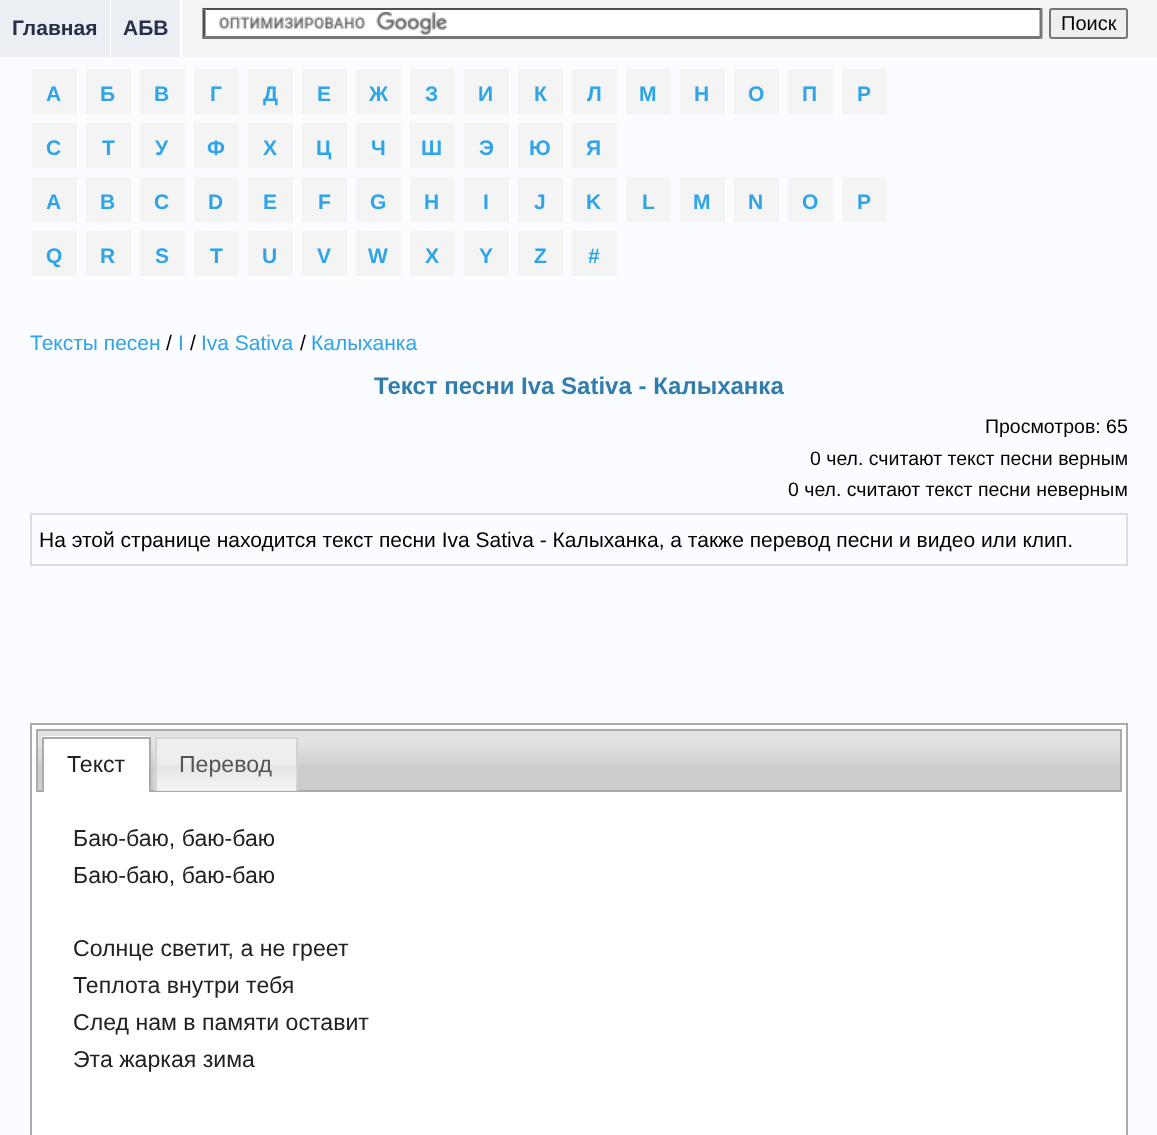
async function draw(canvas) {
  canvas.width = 1157
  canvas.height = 1135
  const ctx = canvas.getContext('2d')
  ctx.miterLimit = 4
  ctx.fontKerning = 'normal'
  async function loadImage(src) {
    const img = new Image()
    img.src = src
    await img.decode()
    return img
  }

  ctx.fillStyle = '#fafcff'
  ctx.fillRect(0, 0, 1157, 1135)
  ctx.fillStyle = '#f4f4f4'
  ctx.fillRect(182, 0, 975, 57)
  ctx.fillStyle = '#ebeff4'
  ctx.fillRect(0, 0, 110, 57)
  ctx.fillStyle = '#fff'
  ctx.fillRect(110, 0, 1, 57)
  ctx.font = 'bold 21px Liberation Sans'
  ctx.fillStyle = '#283049'
  ctx.fillText('Главная', 12, 35)
  ctx.fillStyle = '#ebeff4'
  ctx.fillRect(111, 0, 69, 57)
  ctx.fillStyle = '#fff'
  ctx.fillRect(180, 0, 2, 57)
  ctx.fillStyle = '#283049'
  ctx.fillText('АБВ', 123, 35)
  ctx.fillStyle = '#fff'
  ctx.fillRect(203, 8, 840, 31)
  ctx.drawImage(await loadImage('image0.png'), 219, 12, 228, 23)
  ctx.fillStyle = '#4f4f4f'
  ctx.beginPath()
  ctx.moveTo(202, 8)
  ctx.lineTo(1042, 8)
  ctx.lineTo(1040, 10)
  ctx.lineTo(206, 10)
  ctx.closePath()
  ctx.fill()
  ctx.fillStyle = '#767676'
  ctx.beginPath()
  ctx.moveTo(1042.5, 7.5)
  ctx.lineTo(1042.5, 39)
  ctx.lineTo(1039.5, 36)
  ctx.lineTo(1039.5, 10.5)
  ctx.closePath()
  ctx.fill()
  ctx.beginPath()
  ctx.moveTo(1042, 39)
  ctx.lineTo(202, 39)
  ctx.lineTo(206, 36)
  ctx.lineTo(1040, 36)
  ctx.closePath()
  ctx.fill()
  ctx.fillStyle = '#4f4f4f'
  ctx.beginPath()
  ctx.moveTo(202.5, 39)
  ctx.lineTo(202.5, 7.5)
  ctx.lineTo(205.5, 10.5)
  ctx.lineTo(205.5, 36)
  ctx.closePath()
  ctx.fill()
  ctx.fillStyle = '#efefef'
  ctx.beginPath()
  ctx.roundRect(1050, 9, 77, 29, 2)
  ctx.fill()
  ctx.strokeStyle = '#767676'
  ctx.lineWidth = 2
  ctx.stroke()
  ctx.font = '20px Liberation Sans'
  ctx.fillStyle = '#000'
  ctx.fillText('Поиск', 1061, 30)
  ctx.fillStyle = '#f4f4f4'
  ctx.fillRect(32, 69, 45, 45)
  ctx.font = 'bold 21px Liberation Sans'
  ctx.fillStyle = '#2fa4e7'
  ctx.fillText('А', 46, 101)
  ctx.fillStyle = '#f4f4f4'
  ctx.fillRect(86, 69, 45, 45)
  ctx.fillStyle = '#2fa4e7'
  ctx.fillText('Б', 100, 101)
  ctx.fillStyle = '#f4f4f4'
  ctx.fillRect(140, 69, 45, 45)
  ctx.fillStyle = '#2fa4e7'
  ctx.fillText('В', 154, 101)
  ctx.fillStyle = '#f4f4f4'
  ctx.fillRect(194, 69, 45, 45)
  ctx.fillStyle = '#2fa4e7'
  ctx.fillText('Г', 210, 101)
  ctx.fillStyle = '#f4f4f4'
  ctx.fillRect(248, 69, 45, 45)
  ctx.fillStyle = '#2fa4e7'
  ctx.fillText('Д', 263, 101)
  ctx.fillStyle = '#f4f4f4'
  ctx.fillRect(302, 69, 45, 45)
  ctx.fillStyle = '#2fa4e7'
  ctx.fillText('Е', 317, 101)
  ctx.fillStyle = '#f4f4f4'
  ctx.fillRect(356, 69, 45, 45)
  ctx.fillStyle = '#2fa4e7'
  ctx.fillText('Ж', 369, 101)
  ctx.fillStyle = '#f4f4f4'
  ctx.fillRect(410, 69, 45, 45)
  ctx.fillStyle = '#2fa4e7'
  ctx.fillText('З', 425, 101)
  ctx.fillStyle = '#f4f4f4'
  ctx.fillRect(464, 69, 45, 45)
  ctx.fillStyle = '#2fa4e7'
  ctx.fillText('И', 478, 101)
  ctx.fillStyle = '#f4f4f4'
  ctx.fillRect(518, 69, 45, 45)
  ctx.fillStyle = '#2fa4e7'
  ctx.fillText('К', 534, 101)
  ctx.fillStyle = '#f4f4f4'
  ctx.fillRect(572, 69, 45, 45)
  ctx.fillStyle = '#2fa4e7'
  ctx.fillText('Л', 587, 101)
  ctx.fillStyle = '#f4f4f4'
  ctx.fillRect(626, 69, 45, 45)
  ctx.fillStyle = '#2fa4e7'
  ctx.fillText('М', 639, 101)
  ctx.fillStyle = '#f4f4f4'
  ctx.fillRect(680, 69, 45, 45)
  ctx.fillStyle = '#2fa4e7'
  ctx.fillText('Н', 694, 101)
  ctx.fillStyle = '#f4f4f4'
  ctx.fillRect(734, 69, 45, 45)
  ctx.fillStyle = '#2fa4e7'
  ctx.fillText('О', 748, 101)
  ctx.fillStyle = '#f4f4f4'
  ctx.fillRect(788, 69, 45, 45)
  ctx.fillStyle = '#2fa4e7'
  ctx.fillText('П', 802, 101)
  ctx.fillStyle = '#f4f4f4'
  ctx.fillRect(842, 69, 45, 45)
  ctx.fillStyle = '#2fa4e7'
  ctx.fillText('Р', 857, 101)
  ctx.fillStyle = '#f4f4f4'
  ctx.fillRect(32, 123, 45, 45)
  ctx.fillStyle = '#2fa4e7'
  ctx.fillText('С', 46, 155)
  ctx.fillStyle = '#f4f4f4'
  ctx.fillRect(86, 123, 45, 45)
  ctx.fillStyle = '#2fa4e7'
  ctx.fillText('Т', 102, 155)
  ctx.fillStyle = '#f4f4f4'
  ctx.fillRect(140, 123, 45, 45)
  ctx.fillStyle = '#2fa4e7'
  ctx.fillText('У', 155, 155)
  ctx.fillStyle = '#f4f4f4'
  ctx.fillRect(194, 123, 45, 45)
  ctx.fillStyle = '#2fa4e7'
  ctx.fillText('Ф', 207, 155)
  ctx.fillStyle = '#f4f4f4'
  ctx.fillRect(248, 123, 45, 45)
  ctx.fillStyle = '#2fa4e7'
  ctx.fillText('Х', 263, 155)
  ctx.fillStyle = '#f4f4f4'
  ctx.fillRect(302, 123, 45, 45)
  ctx.fillStyle = '#2fa4e7'
  ctx.fillText('Ц', 316, 155)
  ctx.fillStyle = '#f4f4f4'
  ctx.fillRect(356, 123, 45, 45)
  ctx.fillStyle = '#2fa4e7'
  ctx.fillText('Ч', 371, 155)
  ctx.fillStyle = '#f4f4f4'
  ctx.fillRect(410, 123, 45, 45)
  ctx.fillStyle = '#2fa4e7'
  ctx.fillText('Ш', 421, 155)
  ctx.fillStyle = '#f4f4f4'
  ctx.fillRect(464, 123, 45, 45)
  ctx.fillStyle = '#2fa4e7'
  ctx.fillText('Э', 479, 155)
  ctx.fillStyle = '#f4f4f4'
  ctx.fillRect(518, 123, 45, 45)
  ctx.fillStyle = '#2fa4e7'
  ctx.fillText('Ю', 529, 155)
  ctx.fillStyle = '#f4f4f4'
  ctx.fillRect(572, 123, 45, 45)
  ctx.fillStyle = '#2fa4e7'
  ctx.fillText('Я', 586, 155)
  ctx.fillStyle = '#f4f4f4'
  ctx.fillRect(32, 177, 45, 45)
  ctx.fillStyle = '#2fa4e7'
  ctx.fillText('A', 46, 209)
  ctx.fillStyle = '#f4f4f4'
  ctx.fillRect(86, 177, 45, 45)
  ctx.fillStyle = '#2fa4e7'
  ctx.fillText('B', 100, 209)
  ctx.fillStyle = '#f4f4f4'
  ctx.fillRect(140, 177, 45, 45)
  ctx.fillStyle = '#2fa4e7'
  ctx.fillText('C', 154, 209)
  ctx.fillStyle = '#f4f4f4'
  ctx.fillRect(194, 177, 45, 45)
  ctx.fillStyle = '#2fa4e7'
  ctx.fillText('D', 208, 209)
  ctx.fillStyle = '#f4f4f4'
  ctx.fillRect(248, 177, 45, 45)
  ctx.fillStyle = '#2fa4e7'
  ctx.fillText('E', 263, 209)
  ctx.fillStyle = '#f4f4f4'
  ctx.fillRect(302, 177, 45, 45)
  ctx.fillStyle = '#2fa4e7'
  ctx.fillText('F', 318, 209)
  ctx.fillStyle = '#f4f4f4'
  ctx.fillRect(356, 177, 45, 45)
  ctx.fillStyle = '#2fa4e7'
  ctx.fillText('G', 370, 209)
  ctx.fillStyle = '#f4f4f4'
  ctx.fillRect(410, 177, 45, 45)
  ctx.fillStyle = '#2fa4e7'
  ctx.fillText('H', 424, 209)
  ctx.fillStyle = '#f4f4f4'
  ctx.fillRect(464, 177, 45, 45)
  ctx.fillStyle = '#2fa4e7'
  ctx.fillText('I', 483, 209)
  ctx.fillStyle = '#f4f4f4'
  ctx.fillRect(518, 177, 45, 45)
  ctx.fillStyle = '#2fa4e7'
  ctx.fillText('J', 534, 209)
  ctx.fillStyle = '#f4f4f4'
  ctx.fillRect(572, 177, 45, 45)
  ctx.fillStyle = '#2fa4e7'
  ctx.fillText('K', 586, 209)
  ctx.fillStyle = '#f4f4f4'
  ctx.fillRect(626, 177, 45, 45)
  ctx.fillStyle = '#2fa4e7'
  ctx.fillText('L', 642, 209)
  ctx.fillStyle = '#f4f4f4'
  ctx.fillRect(680, 177, 45, 45)
  ctx.fillStyle = '#2fa4e7'
  ctx.fillText('M', 693, 209)
  ctx.fillStyle = '#f4f4f4'
  ctx.fillRect(734, 177, 45, 45)
  ctx.fillStyle = '#2fa4e7'
  ctx.fillText('N', 748, 209)
  ctx.fillStyle = '#f4f4f4'
  ctx.fillRect(788, 177, 45, 45)
  ctx.fillStyle = '#2fa4e7'
  ctx.fillText('O', 802, 209)
  ctx.fillStyle = '#f4f4f4'
  ctx.fillRect(842, 177, 45, 45)
  ctx.fillStyle = '#2fa4e7'
  ctx.fillText('P', 857, 209)
  ctx.fillStyle = '#f4f4f4'
  ctx.fillRect(32, 231, 45, 45)
  ctx.fillStyle = '#2fa4e7'
  ctx.fillText('Q', 46, 263)
  ctx.fillStyle = '#f4f4f4'
  ctx.fillRect(86, 231, 45, 45)
  ctx.fillStyle = '#2fa4e7'
  ctx.fillText('R', 100, 263)
  ctx.fillStyle = '#f4f4f4'
  ctx.fillRect(140, 231, 45, 45)
  ctx.fillStyle = '#2fa4e7'
  ctx.fillText('S', 155, 263)
  ctx.fillStyle = '#f4f4f4'
  ctx.fillRect(194, 231, 45, 45)
  ctx.fillStyle = '#2fa4e7'
  ctx.fillText('T', 210, 263)
  ctx.fillStyle = '#f4f4f4'
  ctx.fillRect(248, 231, 45, 45)
  ctx.fillStyle = '#2fa4e7'
  ctx.fillText('U', 262, 263)
  ctx.fillStyle = '#f4f4f4'
  ctx.fillRect(302, 231, 45, 45)
  ctx.fillStyle = '#2fa4e7'
  ctx.fillText('V', 317, 263)
  ctx.fillStyle = '#f4f4f4'
  ctx.fillRect(356, 231, 45, 45)
  ctx.fillStyle = '#2fa4e7'
  ctx.fillText('W', 368, 263)
  ctx.fillStyle = '#f4f4f4'
  ctx.fillRect(410, 231, 45, 45)
  ctx.fillStyle = '#2fa4e7'
  ctx.fillText('X', 425, 263)
  ctx.fillStyle = '#f4f4f4'
  ctx.fillRect(464, 231, 45, 45)
  ctx.fillStyle = '#2fa4e7'
  ctx.fillText('Y', 479, 263)
  ctx.fillStyle = '#f4f4f4'
  ctx.fillRect(518, 231, 45, 45)
  ctx.fillStyle = '#2fa4e7'
  ctx.fillText('Z', 534, 263)
  ctx.fillStyle = '#f4f4f4'
  ctx.fillRect(572, 231, 45, 45)
  ctx.fillStyle = '#2fa4e7'
  ctx.fillText('#', 588, 263)
  ctx.font = '21px Liberation Sans'
  ctx.fillText('Тексты песен', 30, 350)
  ctx.fillStyle = '#000'
  ctx.fillText('/', 166, 350)
  ctx.fillStyle = '#2fa4e7'
  ctx.fillText('I', 178, 350)
  ctx.fillStyle = '#000'
  ctx.fillText('/', 190, 350)
  ctx.fillStyle = '#2fa4e7'
  ctx.fillText('Iva Sativa', 201, 350)
  ctx.fillStyle = '#000'
  ctx.fillText('/', 300, 350)
  ctx.fillStyle = '#2fa4e7'
  ctx.fillText('Калыханка', 311, 350)
  ctx.font = 'bold 24px Liberation Sans'
  ctx.fillStyle = '#317eac'
  ctx.fillText('Текст песни Iva Sativa - Калыханка', 374, 394)
  ctx.font = '19.5px Liberation Sans'
  ctx.fillStyle = '#000'
  ctx.fillText('Просмотров: 65', 985, 433)
  ctx.fillText('0 чел. считают текст песни верным', 810, 465)
  ctx.fillText('0 чел. считают текст песни неверным', 788, 496)
  ctx.strokeStyle = '#ddd'
  ctx.strokeRect(31, 514, 1096, 51)
  ctx.font = '21px Liberation Sans'
  ctx.fillText('На этой странице находится текст песни Iva Sativa - Калыханка, а также перевод песни и видео или клип.', 39, 547)
  ctx.fillStyle = '#fff'
  ctx.beginPath()
  ctx.rect(31, 724, 1096, 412)
  ctx.fill()
  ctx.strokeStyle = '#aaa'
  ctx.stroke()
  ctx.fillStyle = '#ccc'
  ctx.fillRect(38, 765, 1082, 25)
  ctx.drawImage(await loadImage('image1.png'), 38, 731, 1082, 34)
  ctx.strokeRect(37, 730, 1084, 61)
  ctx.fillStyle = '#fff'
  ctx.fillRect(42, 736, 108, 56)
  ctx.fillStyle = '#aaa'
  ctx.fillRect(42, 737, 108, 2)
  ctx.fillRect(149, 737, 2, 55)
  ctx.fillRect(42, 737, 2, 55)
  ctx.font = '23.1px Liberation Sans'
  ctx.fillStyle = '#222'
  ctx.fillText('Текст', 67, 772)
  ctx.fillStyle = '#e6e6e6'
  ctx.fillRect(157, 790, 139, 1)
  ctx.drawImage(await loadImage('image2.png'), 154, 736, 143, 55)
  ctx.fillStyle = '#d3d3d3'
  ctx.fillRect(155, 737, 142, 2)
  ctx.fillRect(296, 737, 2, 54)
  ctx.fillRect(155, 737, 2, 54)
  ctx.fillStyle = '#555'
  ctx.fillText('Перевод', 179, 772)
  ctx.fillStyle = '#222'
  ctx.fillText('Баю-баю, баю-баю', 73, 846)
  ctx.fillText('Баю-баю, баю-баю', 73, 883)
  ctx.fillText('Солнце светит, а не греет', 73, 956)
  ctx.fillText('Теплота внутри тебя', 73, 993)
  ctx.fillText('След нам в памяти оставит', 73, 1030)
  ctx.fillText('Эта жаркая зима', 73, 1067)
}

draw(document.querySelector('canvas'))
